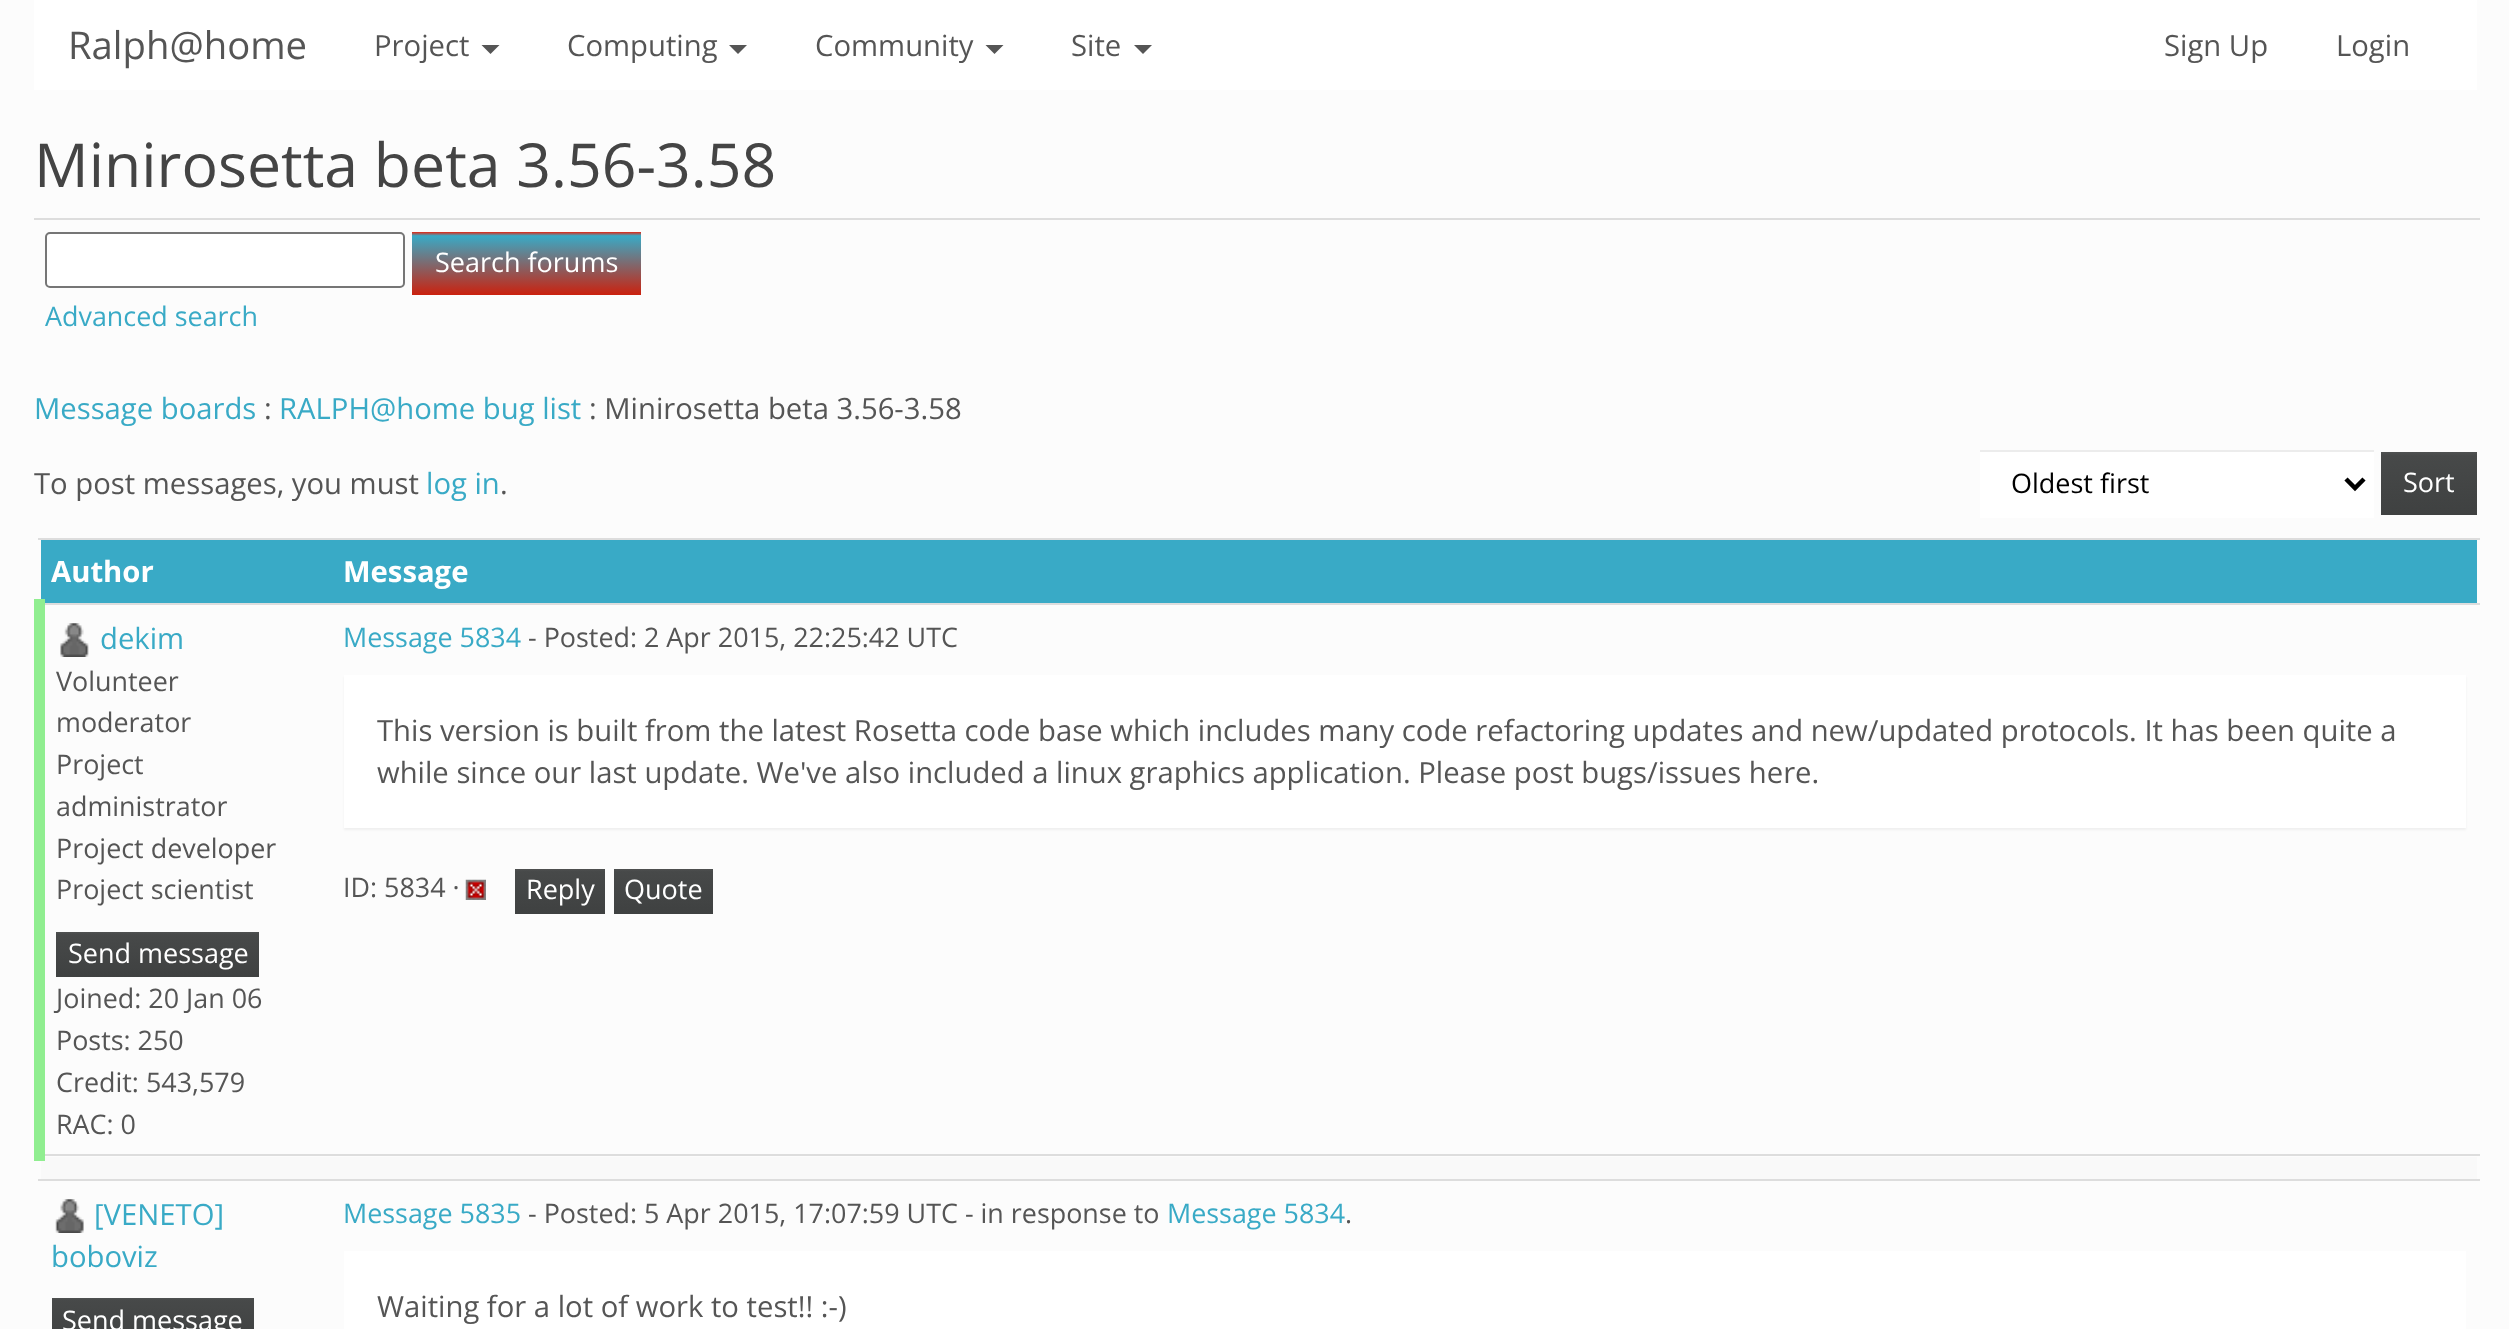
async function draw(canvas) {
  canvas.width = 2509
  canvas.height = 1329
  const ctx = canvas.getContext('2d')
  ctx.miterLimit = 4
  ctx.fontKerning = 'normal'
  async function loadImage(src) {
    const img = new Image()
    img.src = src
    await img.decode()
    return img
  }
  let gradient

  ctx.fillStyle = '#fcfcfc'
  ctx.fillRect(0, 0, 2509, 1329)
  ctx.fillStyle = '#fff'
  ctx.fillRect(34, 0, 2443, 90)
  ctx.font = '38.25px Open Sans'
  ctx.fillStyle = '#555'
  ctx.fillText('Ralph@home', 68, 59)
  ctx.font = '29.25px Open Sans'
  ctx.fillText('Project', 374, 56)
  ctx.beginPath()
  ctx.moveTo(481.5, 45)
  ctx.lineTo(499.5, 45)
  ctx.lineTo(490.5, 54)
  ctx.closePath()
  ctx.fill()
  ctx.fillText('Computing', 567, 56)
  ctx.beginPath()
  ctx.moveTo(729, 45)
  ctx.lineTo(747, 45)
  ctx.lineTo(738, 54)
  ctx.closePath()
  ctx.fill()
  ctx.fillText('Community', 815, 56)
  ctx.beginPath()
  ctx.moveTo(985.5, 45)
  ctx.lineTo(1003.5, 45)
  ctx.lineTo(994.5, 54)
  ctx.closePath()
  ctx.fill()
  ctx.fillText('Site', 1071, 56)
  ctx.beginPath()
  ctx.moveTo(1134, 45)
  ctx.lineTo(1152, 45)
  ctx.lineTo(1143, 54)
  ctx.closePath()
  ctx.fill()
  ctx.fillText('Sign Up', 2164, 56)
  ctx.fillText('Login', 2336, 56)
  ctx.font = '60.75px Open Sans'
  ctx.fillStyle = '#444'
  ctx.fillText('Minirosetta beta 3.56-3.58', 34, 187)
  ctx.fillStyle = '#ddd'
  ctx.fillRect(34, 218, 2446, 2)
  ctx.fillStyle = '#fff'
  ctx.beginPath()
  ctx.roundRect(46, 233, 358, 54, 4)
  ctx.fill()
  ctx.strokeStyle = '#767676'
  ctx.lineWidth = 2
  ctx.stroke()
  gradient = ctx.createLinearGradient(527, 232, 527, 295)
  gradient.addColorStop(0, '#e72510')
  gradient.addColorStop(0.06, '#39aac6')
  gradient.addColorStop(1, '#cb210e')
  ctx.fillStyle = gradient
  ctx.fillRect(412, 232, 229, 63)
  ctx.font = '27px Open Sans'
  ctx.fillStyle = '#fff'
  ctx.fillText('Search forums', 435, 272)
  ctx.font = '26.9px Open Sans'
  ctx.fillStyle = '#39aac6'
  ctx.fillText('Advanced search', 45, 326)
  ctx.font = '29.25px Open Sans'
  ctx.fillText('Message boards', 34, 419)
  ctx.fillStyle = '#555'
  ctx.fillText(':', 264, 419)
  ctx.fillStyle = '#39aac6'
  ctx.fillText('RALPH@home bug list', 279, 419)
  ctx.fillStyle = '#555'
  ctx.fillText(': Minirosetta beta 3.56-3.58', 589, 419)
  ctx.fillText('To post messages, you must', 34, 494)
  ctx.fillStyle = '#39aac6'
  ctx.fillText('log in', 426, 494)
  ctx.fillStyle = '#555'
  ctx.fillText('.', 500, 494)
  ctx.fillStyle = '#fff'
  ctx.fillRect(1980, 452, 394, 66)
  ctx.fillStyle = '#ececec'
  ctx.fillRect(1980, 450, 394, 2)
  ctx.beginPath()
  ctx.moveTo(2346, 479)
  ctx.lineTo(2355, 488)
  ctx.lineTo(2364, 479)
  ctx.strokeStyle = '#000'
  ctx.lineWidth = 4.5
  ctx.stroke()
  ctx.font = '27px Open Sans'
  ctx.fillStyle = '#000'
  ctx.fillText('Oldest first', 2011, 493)
  gradient = ctx.createLinearGradient(2429, 452, 2429, 515)
  gradient.addColorStop(0, '#4f5151')
  gradient.addColorStop(0.06, '#474949')
  gradient.addColorStop(1, '#3f4141')
  ctx.fillStyle = gradient
  ctx.fillRect(2381, 452, 96, 63)
  ctx.fillStyle = '#fff'
  ctx.fillText('Sort', 2403, 492)
  ctx.fillStyle = '#39aac6'
  ctx.fillRect(41, 540, 2436, 63)
  ctx.font = 'bold 29.25px Open Sans'
  ctx.fillStyle = '#fff'
  ctx.fillText('Author', 51, 582)
  ctx.fillStyle = '#ddd'
  ctx.fillRect(38, 538, 2442, 2)
  ctx.fillStyle = '#fff'
  ctx.fillText('Message', 343, 582)
  ctx.fillStyle = '#ddd'
  ctx.fillRect(38, 603, 2442, 2)
  ctx.fillStyle = '#f9f9f9'
  ctx.fillRect(41, 1157, 2436, 22)
  ctx.fillStyle = '#ddd'
  ctx.fillRect(38, 1154, 2442, 2)
  ctx.fillStyle = '#90ee90'
  ctx.fillRect(34, 599, 11, 562)
  ctx.drawImage(await loadImage('image0.png'), 60, 623, 29, 34)
  ctx.font = '29.25px Open Sans'
  ctx.fillStyle = '#39aac6'
  ctx.fillText('dekim', 100, 649)
  ctx.font = '26.9px Open Sans'
  ctx.fillStyle = '#555'
  ctx.fillText('Volunteer', 56, 691)
  ctx.fillText('moderator', 56, 732)
  ctx.fillText('Project', 56, 774)
  ctx.fillText('administrator', 56, 816)
  ctx.fillText('Project developer', 56, 858)
  ctx.fillText('Project scientist', 56, 899)
  gradient = ctx.createLinearGradient(158, 932, 158, 977)
  gradient.addColorStop(0, '#4f5151')
  gradient.addColorStop(0.06, '#474949')
  gradient.addColorStop(1, '#3f4141')
  ctx.fillStyle = gradient
  ctx.fillRect(56, 932, 203, 45)
  ctx.font = '27px Open Sans'
  ctx.fillStyle = '#fff'
  ctx.fillText('Send message', 68, 963)
  ctx.font = '26.9px Open Sans'
  ctx.fillStyle = '#555'
  ctx.fillText('Joined: 20 Jan 06', 56, 1008)
  ctx.fillText('Posts: 250', 56, 1050)
  ctx.fillText('Credit: 543,579', 56, 1092)
  ctx.fillText('RAC: 0', 56, 1134)
  ctx.fillStyle = '#39aac6'
  ctx.fillText('Message 5834', 343, 647)
  ctx.fillStyle = '#555'
  ctx.fillText('- Posted: 2 Apr 2015, 22:25:42 UTC', 528, 647)
  ctx.fillStyle = '#0000000d'
  ctx.filter = 'blur(1px)'
  ctx.beginPath()
  ctx.rect(344, 677, 2122, 153)
  ctx.fill()
  ctx.filter = 'none'
  ctx.fillStyle = '#fff'
  ctx.fillRect(344, 675, 2122, 153)
  ctx.font = '29.25px Open Sans'
  ctx.fillStyle = '#555'
  ctx.fillText('This version is built from the latest Rosetta code base which includes many code refactoring updates and new/updated protocols. It has been quite a', 377, 741)
  ctx.fillText('while since our last update. We\'ve also included a linux graphics application. Please post bugs/issues here.', 377, 783)
  ctx.font = '26.9px Open Sans'
  ctx.fillText('ID: 5834 ·', 343, 897)
  ctx.drawImage(await loadImage('image1.png'), 465, 879, 21, 21)
  gradient = ctx.createLinearGradient(560, 869, 560, 914)
  gradient.addColorStop(0, '#4f5151')
  gradient.addColorStop(0.06, '#474949')
  gradient.addColorStop(1, '#3f4141')
  ctx.fillStyle = gradient
  ctx.fillRect(515, 869, 90, 45)
  ctx.font = '27px Open Sans'
  ctx.fillStyle = '#fff'
  ctx.fillText('Reply', 526, 899)
  gradient = ctx.createLinearGradient(664, 869, 664, 914)
  gradient.addColorStop(0, '#4f5151')
  gradient.addColorStop(0.06, '#474949')
  gradient.addColorStop(1, '#3f4141')
  ctx.fillStyle = gradient
  ctx.fillRect(614, 869, 99, 45)
  ctx.fillStyle = '#fff'
  ctx.fillText('Quote', 624, 899)
  ctx.drawImage(await loadImage('image2.png'), 55, 1199, 29, 34)
  ctx.font = '29.25px Open Sans'
  ctx.fillStyle = '#39aac6'
  ctx.fillText('[VENETO]', 94, 1225)
  ctx.fillText('boboviz', 51, 1267)
  gradient = ctx.createLinearGradient(153, 1298, 153, 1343)
  gradient.addColorStop(0, '#4f5151')
  gradient.addColorStop(0.06, '#474949')
  gradient.addColorStop(1, '#3f4141')
  ctx.fillStyle = gradient
  ctx.fillRect(52, 1298, 202, 31)
  ctx.font = '27px Open Sans'
  ctx.fillStyle = '#fff'
  ctx.fillText('Send message', 62, 1330)
  ctx.fillStyle = '#ddd'
  ctx.fillRect(38, 1179, 2442, 2)
  ctx.font = '26.9px Open Sans'
  ctx.fillStyle = '#39aac6'
  ctx.fillText('Message 5835', 343, 1223)
  ctx.fillStyle = '#555'
  ctx.fillText('- Posted: 5 Apr 2015, 17:07:59 UTC - in response to', 528, 1223)
  ctx.fillStyle = '#39aac6'
  ctx.fillText('Message 5834', 1167, 1223)
  ctx.fillStyle = '#555'
  ctx.fillText('.', 1345, 1223)
  ctx.fillStyle = '#fff'
  ctx.fillRect(344, 1251, 2122, 78)
  ctx.font = '29.25px Open Sans'
  ctx.fillStyle = '#555'
  ctx.fillText('Waiting for a lot of work to test!! :-)', 377, 1317)
}

draw(document.querySelector('canvas'))
